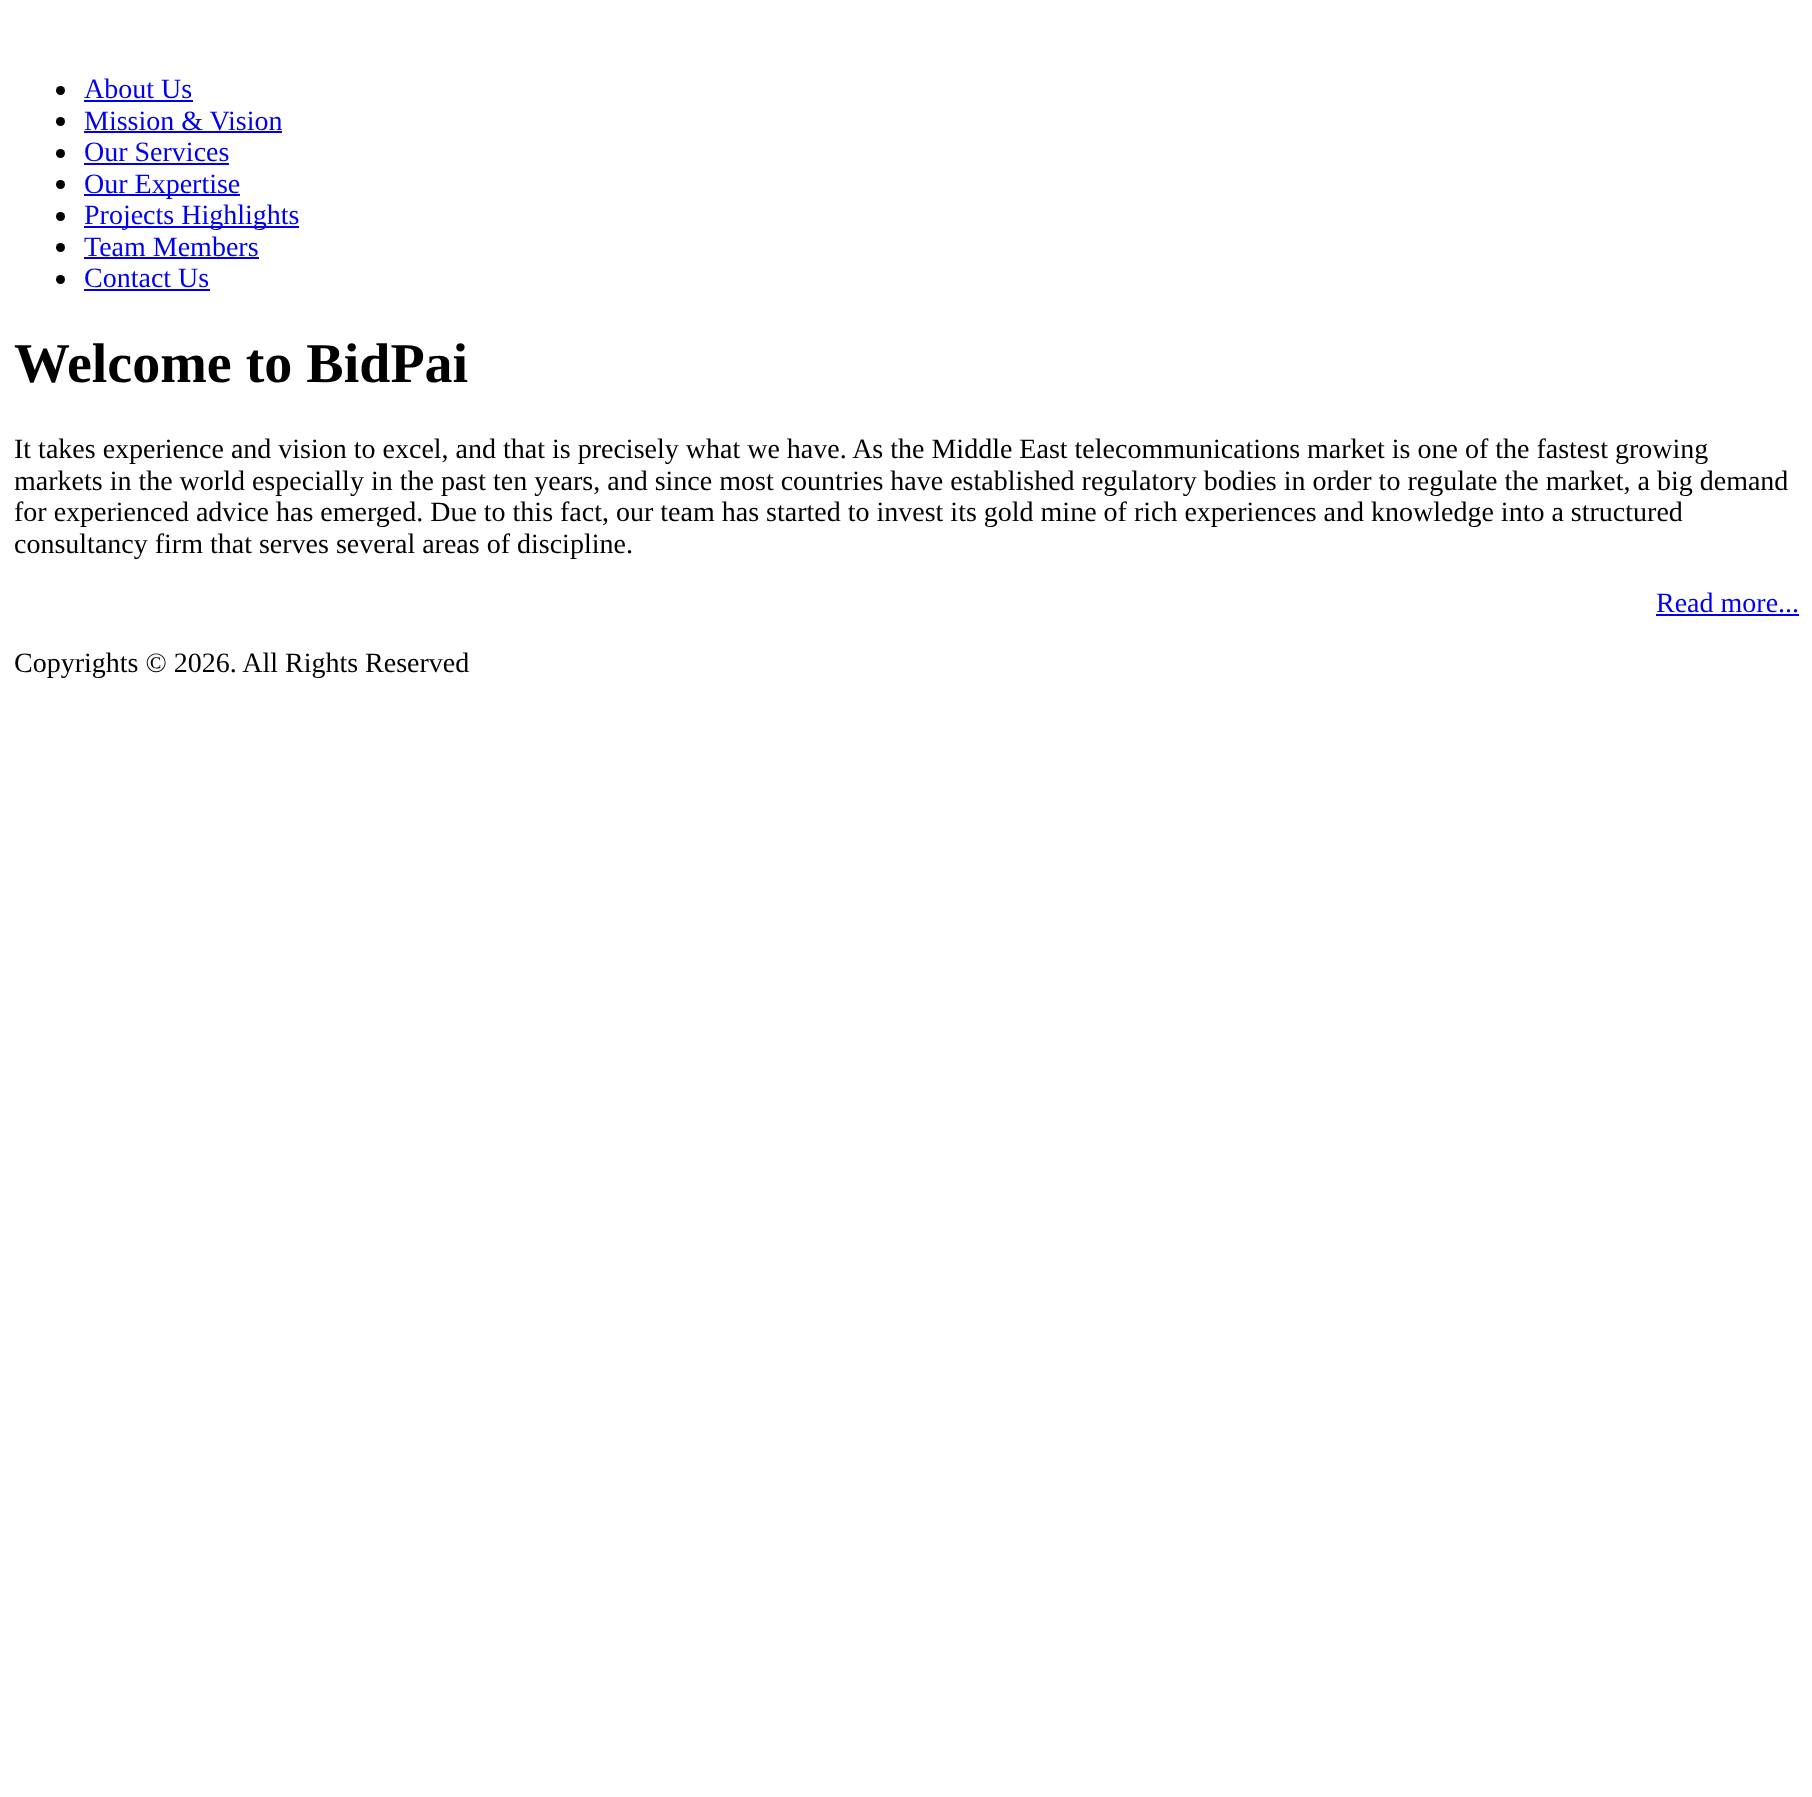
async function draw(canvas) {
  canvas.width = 1812
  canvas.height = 1797
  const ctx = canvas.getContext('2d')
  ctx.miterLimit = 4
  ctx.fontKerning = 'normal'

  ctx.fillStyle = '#fff'
  ctx.fillRect(0, 0, 1812, 1797)
  ctx.fillStyle = '#000'
  ctx.beginPath()
  ctx.arc(60.5, 90.5, 4.5, 0, 2 * Math.PI)
  ctx.fill()
  ctx.font = '28px Liberation Serif'
  ctx.fillStyle = '#00e'
  ctx.fillText('About Us', 84, 98)
  ctx.fillRect(84, 100, 109, 2)
  ctx.fillStyle = '#000'
  ctx.beginPath()
  ctx.arc(60.5, 121.5, 4.5, 0, 2 * Math.PI)
  ctx.fill()
  ctx.fillStyle = '#00e'
  ctx.fillText('Mission & Vision', 84, 130)
  ctx.fillRect(84, 131, 198, 2)
  ctx.fillStyle = '#000'
  ctx.beginPath()
  ctx.arc(60.5, 153.5, 4.5, 0, 2 * Math.PI)
  ctx.fill()
  ctx.fillStyle = '#00e'
  ctx.fillText('Our Services', 84, 161)
  ctx.fillRect(84, 163, 145, 2)
  ctx.fillStyle = '#000'
  ctx.beginPath()
  ctx.arc(60.5, 184.5, 4.5, 0, 2 * Math.PI)
  ctx.fill()
  ctx.fillStyle = '#00e'
  ctx.fillRect(84, 194, 156, 2)
  ctx.fillText('Our Expertise', 84, 193)
  ctx.fillStyle = '#000'
  ctx.beginPath()
  ctx.arc(60.5, 216.5, 4.5, 0, 2 * Math.PI)
  ctx.fill()
  ctx.fillStyle = '#00e'
  ctx.fillRect(84, 226, 215, 2)
  ctx.fillText('Projects Highlights', 84, 224)
  ctx.fillStyle = '#000'
  ctx.beginPath()
  ctx.arc(60.5, 247.5, 4.5, 0, 2 * Math.PI)
  ctx.fill()
  ctx.fillStyle = '#00e'
  ctx.fillText('Team Members', 84, 256)
  ctx.fillRect(84, 257, 175, 2)
  ctx.fillStyle = '#000'
  ctx.beginPath()
  ctx.arc(60.5, 279.5, 4.5, 0, 2 * Math.PI)
  ctx.fill()
  ctx.fillStyle = '#00e'
  ctx.fillText('Contact Us', 84, 287)
  ctx.fillRect(84, 289, 126, 2)
  ctx.font = 'bold 56px Liberation Serif'
  ctx.fillStyle = '#000'
  ctx.fillText('Welcome to BidPai', 14, 382)
  ctx.font = '28px Liberation Serif'
  ctx.fillText('It takes experience and vision to excel, and that is precisely what we have. As the Middle East telecommunications market is one of the fastest growing', 14, 458)
  ctx.fillText('markets in the world especially in the past ten years, and since most countries have established regulatory bodies in order to regulate the market, a big demand', 14, 490)
  ctx.fillText('for experienced advice has emerged. Due to this fact, our team has started to invest its gold mine of rich experiences and knowledge into a structured', 14, 521)
  ctx.fillText('consultancy firm that serves several areas of discipline.', 14, 553)
  ctx.fillStyle = '#00e'
  ctx.fillText('Read more...', 1656, 612)
  ctx.fillRect(1656, 614, 143, 2)
  ctx.fillStyle = '#000'
  ctx.fillText('Copyrights © 2026. All Rights Reserved', 14, 672)
}

draw(document.querySelector('canvas'))
